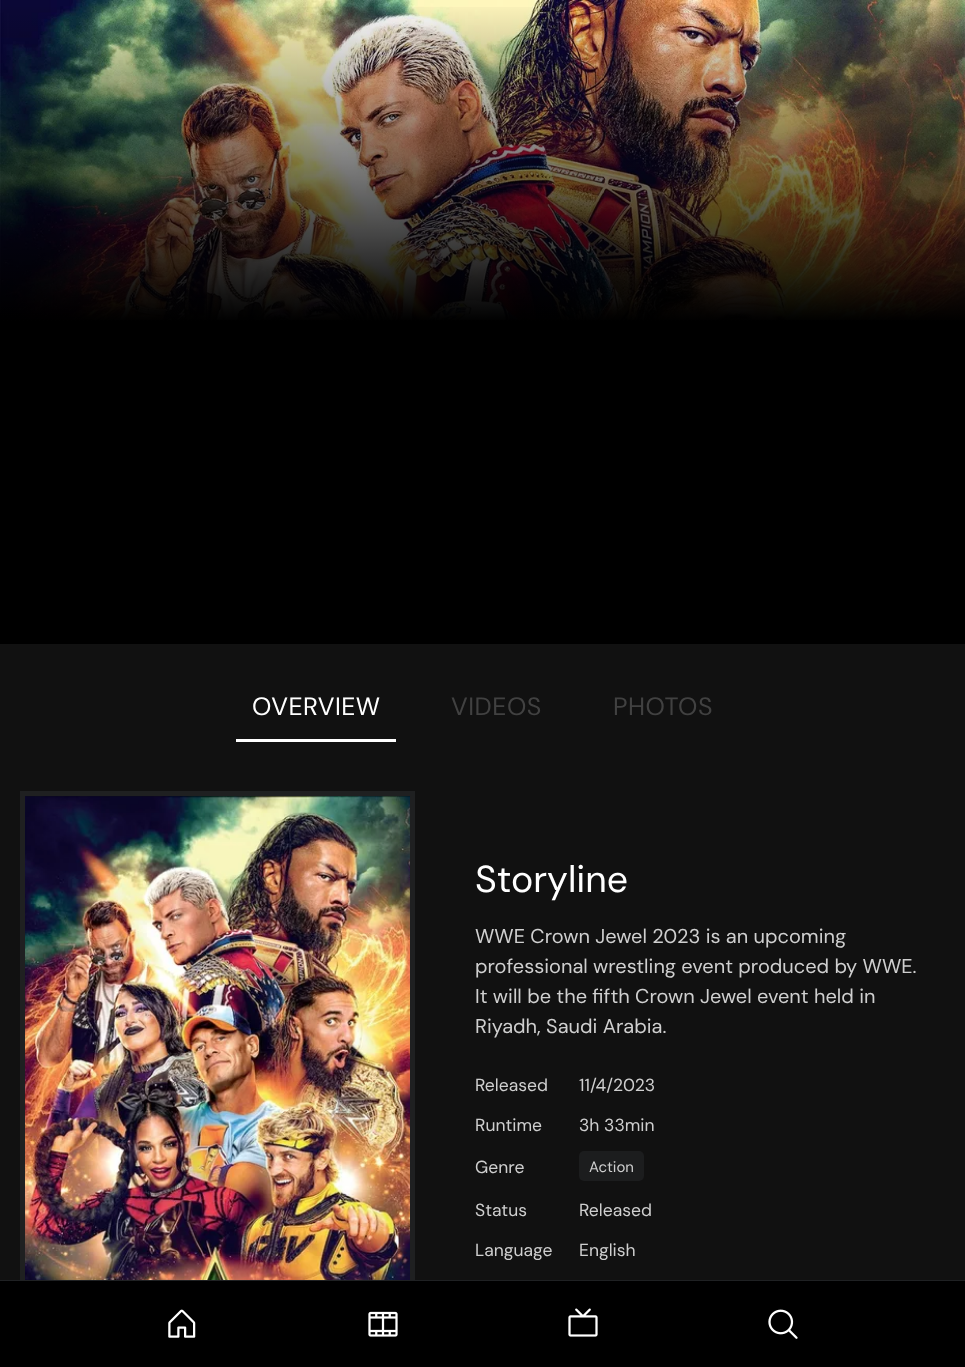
async function draw(canvas) {
  canvas.width = 965
  canvas.height = 1367
  const ctx = canvas.getContext('2d')
  ctx.miterLimit = 4
  ctx.fontKerning = 'normal'
  async function loadImage(src) {
    const img = new Image()
    img.src = src
    await img.decode()
    return img
  }
  let gradient

  ctx.fillStyle = '#111'
  ctx.fillRect(0, 0, 965, 1367)
  ctx.drawImage(await loadImage('image0.png'), 0, 0, 965, 320)
  gradient = ctx.createLinearGradient(483, 644, 483, 0)
  gradient.addColorStop(0, '#000')
  gradient.addColorStop(0.5, '#000')
  gradient.addColorStop(1, '#00000000')
  ctx.fillStyle = gradient
  ctx.fillRect(0, 7, 965, 637)
  ctx.fillStyle = '#fff'
  ctx.fillRect(236, 739, 160, 3)
  ctx.letterSpacing = '0.5px'
  ctx.font = '25px DM Sans'
  ctx.fillText('OVERVIEW', 252, 715)
  ctx.fillStyle = '#414141'
  ctx.fillText('VIDEOS', 451, 715)
  ctx.fillText('PHOTOS', 613, 715)
  ctx.fillStyle = '#000'
  ctx.fillRect(0, 1281, 965, 86)
  ctx.fillStyle = '#1f2123'
  ctx.fillRect(0, 1280, 965, 1)
  ctx.save()
  ctx.beginPath()
  ctx.rect(0, 0, 965, 1280)
  ctx.clip()
  ctx.strokeStyle = '#1f2021'
  ctx.lineWidth = 5
  ctx.strokeRect(22.5, 793.5, 390, 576)
  ctx.restore()
  ctx.drawImage(await loadImage('image1.png'), 25, 796, 385, 484)
  ctx.letterSpacing = '0px'
  ctx.font = '37.5px DM Sans'
  ctx.fillStyle = '#fff'
  ctx.fillText('Storyline', 475, 892)
  ctx.font = '20px DM Sans'
  ctx.fillStyle = '#cfcfcf'
  ctx.fillText('WWE Crown Jewel 2023 is an upcoming', 475, 943)
  ctx.fillText('professional wrestling event produced by WWE.', 475, 973)
  ctx.fillText('It will be the fifth Crown Jewel event held in', 475, 1003)
  ctx.fillText('Riyadh, Saudi Arabia.', 475, 1033)
  ctx.font = '17.5px DM Sans'
  ctx.fillText('Released', 475, 1091)
  ctx.fillText('11/4/2023', 579, 1091)
  ctx.fillText('Runtime', 475, 1131)
  ctx.fillText('3h 33min', 579, 1131)
  ctx.fillText('Genre', 475, 1173)
  ctx.fillStyle = '#1c1d1e'
  ctx.beginPath()
  ctx.roundRect(579, 1151, 65, 30, 5)
  ctx.fill()
  ctx.font = '15px DM Sans'
  ctx.fillStyle = '#cfcfcf'
  ctx.fillText('Action', 589, 1172)
  ctx.font = '17.5px DM Sans'
  ctx.fillText('Status', 475, 1216)
  ctx.fillText('Released', 579, 1216)
  ctx.fillText('Language', 475, 1256)
  ctx.fillText('English', 579, 1256)
  ctx.drawImage(await loadImage('image2.png'), 168, 1309, 28, 29)
  ctx.drawImage(await loadImage('image3.png'), 368, 1311, 30, 26)
  ctx.drawImage(await loadImage('image4.png'), 568, 1308, 30, 29)
  ctx.drawImage(await loadImage('image5.png'), 768, 1309, 30, 30)
}

draw(document.querySelector('canvas'))
